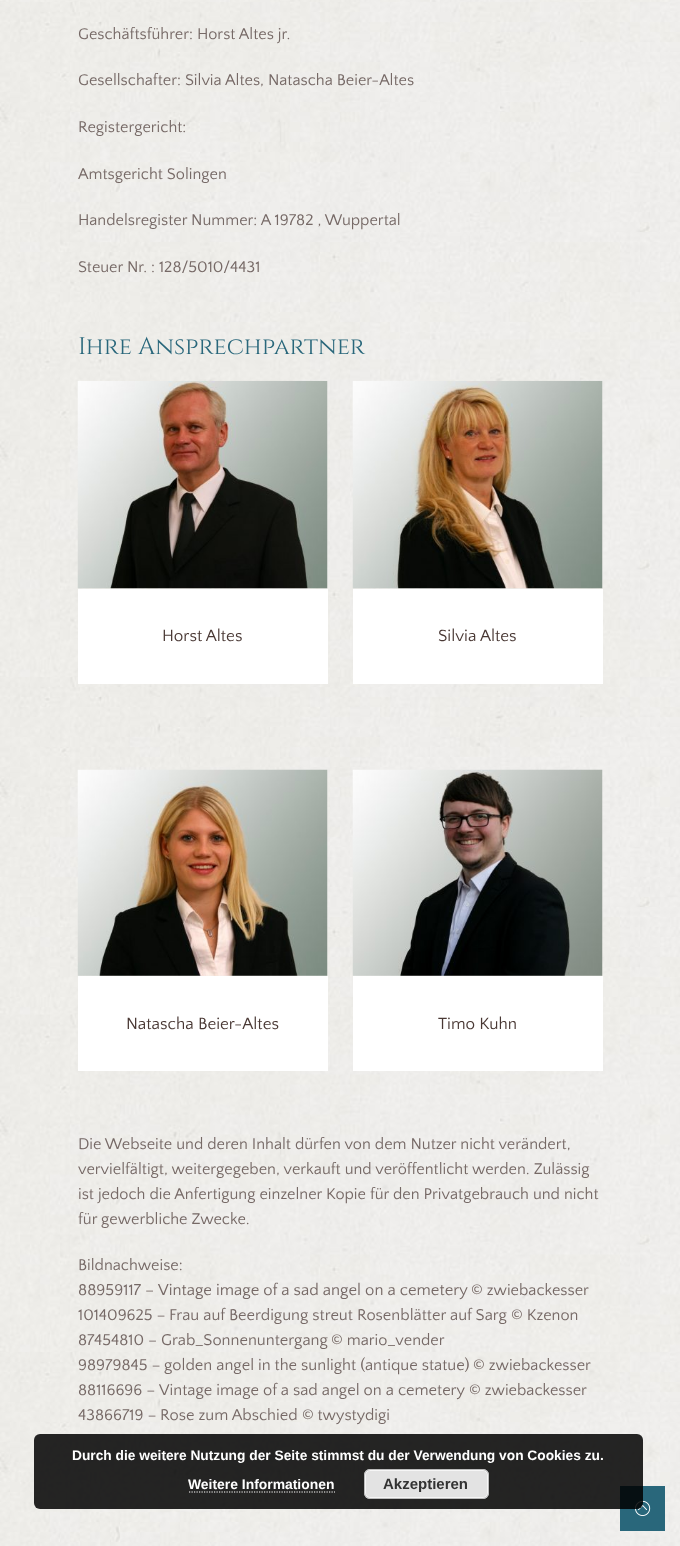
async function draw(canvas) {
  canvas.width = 680
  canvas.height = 1546
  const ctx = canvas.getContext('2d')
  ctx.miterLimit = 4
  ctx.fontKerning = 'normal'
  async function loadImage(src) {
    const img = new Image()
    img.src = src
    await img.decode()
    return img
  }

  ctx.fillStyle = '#fff'
  ctx.fillRect(0, 0, 680, 1546)
  ctx.drawImage(await loadImage('image0.png'), 0, 0, 680, 1546)
  ctx.font = '16.25px Quattrocento Sans'
  ctx.fillStyle = '#766966'
  ctx.fillText('Geschäftsführer: Horst Altes jr.', 78, 39)
  ctx.fillText('Gesellschafter: Silvia Altes, Natascha Beier-Altes', 78, 85)
  ctx.fillText('Registergericht:', 78, 132)
  ctx.fillText('Amtsgericht Solingen', 78, 179)
  ctx.fillText('Handelsregister Nummer: A 19782 , Wuppertal', 78, 225)
  ctx.fillText('Steuer Nr. : 128/5010/4431', 78, 272)
  ctx.font = '24.1px Cinzel'
  ctx.fillStyle = '#29677b'
  ctx.fillText('Ihre Ansprechpartner', 78, 354)
  ctx.drawImage(await loadImage('image1.png'), 77, 380, 251, 209)
  ctx.fillStyle = '#fff'
  ctx.fillRect(78, 589, 250, 95)
  ctx.font = '17px Quattrocento Sans'
  ctx.fillStyle = '#493834'
  ctx.fillText('Horst Altes', 162, 641)
  ctx.drawImage(await loadImage('image2.png'), 352, 380, 251, 209)
  ctx.fillStyle = '#fff'
  ctx.fillRect(353, 589, 250, 95)
  ctx.fillStyle = '#493834'
  ctx.fillText('Silvia Altes', 438, 641)
  ctx.drawImage(await loadImage('image3.png'), 77, 769, 251, 207)
  ctx.fillStyle = '#fff'
  ctx.fillRect(78, 976, 250, 95)
  ctx.fillStyle = '#493834'
  ctx.fillText('Natascha Beier-Altes', 126, 1029)
  ctx.drawImage(await loadImage('image4.png'), 352, 769, 251, 207)
  ctx.fillStyle = '#fff'
  ctx.fillRect(353, 976, 250, 95)
  ctx.fillStyle = '#493834'
  ctx.fillText('Timo Kuhn', 438, 1029)
  ctx.font = '16.25px Quattrocento Sans'
  ctx.fillStyle = '#766966'
  ctx.fillText('Die Webseite und deren Inhalt dürfen von dem Nutzer nicht verändert,', 78, 1149)
  ctx.fillText('vervielfältigt, weitergegeben, verkauft und veröffentlicht werden. Zulässig', 78, 1174)
  ctx.fillText('ist jedoch die Anfertigung einzelner Kopie für den Privatgebrauch und nicht', 78, 1199)
  ctx.fillText('für gewerbliche Zwecke.', 78, 1224)
  ctx.fillText('Bildnachweise:', 78, 1270)
  ctx.font = '16.4px Quattrocento Sans'
  ctx.fillText('88959117 –', 78, 1295)
  ctx.font = '16.6px Quattrocento Sans'
  ctx.fillText('Vintage image of a sad angel on a cemetery', 158, 1295)
  ctx.font = '16.25px Quattrocento Sans'
  ctx.fillText('© zwiebackesser', 471, 1295)
  ctx.fillText('101409625 –', 78, 1320)
  ctx.font = '16.4px Quattrocento Sans'
  ctx.fillText('Frau auf Beerdigung streut Rosenblätter auf Sarg', 169, 1320)
  ctx.font = '16.25px Quattrocento Sans'
  ctx.fillText('© Kzenon', 511, 1320)
  ctx.fillText('87454810 –', 78, 1345)
  ctx.font = '16.4px Quattrocento Sans'
  ctx.fillText('Grab_Sonnenuntergang', 161, 1345)
  ctx.font = '16.25px Quattrocento Sans'
  ctx.fillText('© mario_vender', 331, 1345)
  ctx.fillText('98979845 –', 78, 1370)
  ctx.font = '16.4px Quattrocento Sans'
  ctx.fillText('golden angel in the sunlight (antique statue)', 164, 1370)
  ctx.font = '16.25px Quattrocento Sans'
  ctx.fillText('© zwiebackesser', 473, 1370)
  ctx.fillText('88116696 –', 78, 1395)
  ctx.font = '16.4px Quattrocento Sans'
  ctx.fillText('Vintage image of a sad angel on a cemetery', 159, 1395)
  ctx.font = '16.25px Quattrocento Sans'
  ctx.fillText('© zwiebackesser', 469, 1395)
  ctx.fillText('43866719 –', 78, 1420)
  ctx.font = '16.4px Quattrocento Sans'
  ctx.fillText('Rose zum Abschied', 160, 1420)
  ctx.font = '16.25px Quattrocento Sans'
  ctx.fillText('© twystydigi', 302, 1420)
  ctx.fillStyle = '#29677b'
  ctx.fillRect(620, 1486, 45, 45)
  ctx.drawImage(await loadImage('image5.png'), 635, 1500, 16, 16)
  ctx.fillStyle = '#000000d9'
  ctx.beginPath()
  ctx.roundRect(34, 1434, 609, 75, 6)
  ctx.fill()
  ctx.font = 'bold 13.75px Liberation Sans'
  ctx.fillStyle = '#fff'
  ctx.fillText('Durch die weitere Nutzung der Seite stimmst du der Verwendung von Cookies zu.', 72, 1460)
  ctx.font = 'bold 13.9px Liberation Sans'
  ctx.fillText('Weitere Informationen', 188, 1489)
  ctx.beginPath()
  ctx.moveTo(189, 1492)
  ctx.lineTo(335, 1492)
  ctx.strokeStyle = '#fff'
  ctx.lineWidth = 1.2
  ctx.setLineDash([1.25, 1.25])
  ctx.stroke()
  ctx.fillStyle = '#e3e3e3'
  ctx.beginPath()
  ctx.roundRect(364, 1469, 125, 30, 6)
  ctx.fill()
  ctx.beginPath()
  ctx.roundRect(365.5, 1470.5, 122, 27, 4.5)
  ctx.strokeStyle = '#f6f6f6'
  ctx.lineWidth = 1
  ctx.setLineDash([])
  ctx.stroke()
  ctx.beginPath()
  ctx.roundRect(364.5, 1469.5, 124, 29, 5.5)
  ctx.strokeStyle = '#bbb'
  ctx.stroke()
  ctx.font = 'bold 15px Liberation Sans'
  ctx.fillStyle = '#333'
  ctx.fillText('Akzeptieren', 383, 1489)
}

draw(document.querySelector('canvas'))
